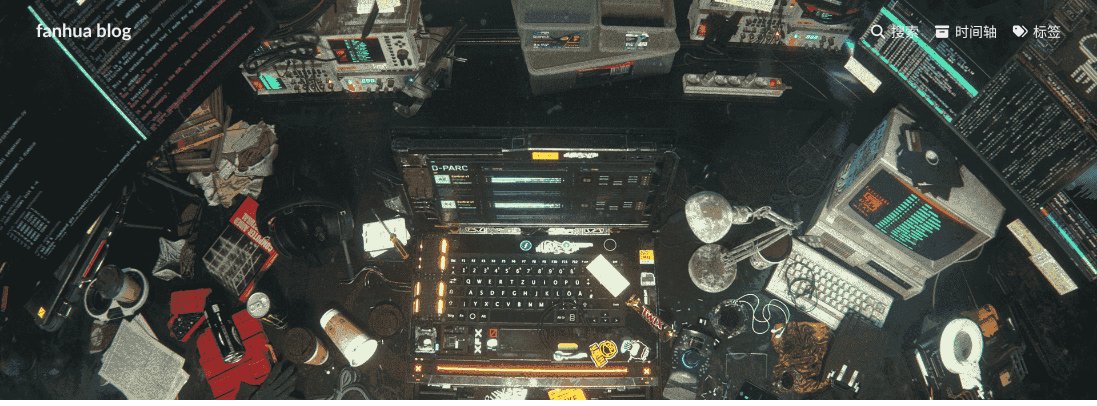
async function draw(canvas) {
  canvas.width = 1097
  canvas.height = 406
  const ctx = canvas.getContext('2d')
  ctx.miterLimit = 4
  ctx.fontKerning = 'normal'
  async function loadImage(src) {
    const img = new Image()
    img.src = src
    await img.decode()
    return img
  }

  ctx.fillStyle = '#fff'
  ctx.fillRect(0, 0, 1097, 406)
  ctx.drawImage(await loadImage('image0.png'), 0, 0, 1097, 400)
  ctx.font = 'bold 18.25px Lato'
  ctx.fillStyle = '#eee'
  ctx.fillText('fanhua blog', 36, 37)
  ctx.drawImage(await loadImage('image1.png'), 871, 24, 15, 15)
  ctx.font = '14px Noto Sans CJK SC'
  ctx.fillText('搜索', 891, 37)
  ctx.drawImage(await loadImage('image2.png'), 935, 25, 15, 13)
  ctx.fillText('时间轴', 955, 37)
  ctx.drawImage(await loadImage('image3.png'), 1012, 25, 16, 13)
  ctx.fillText('标签', 1033, 37)
}

draw(document.querySelector('canvas'))
